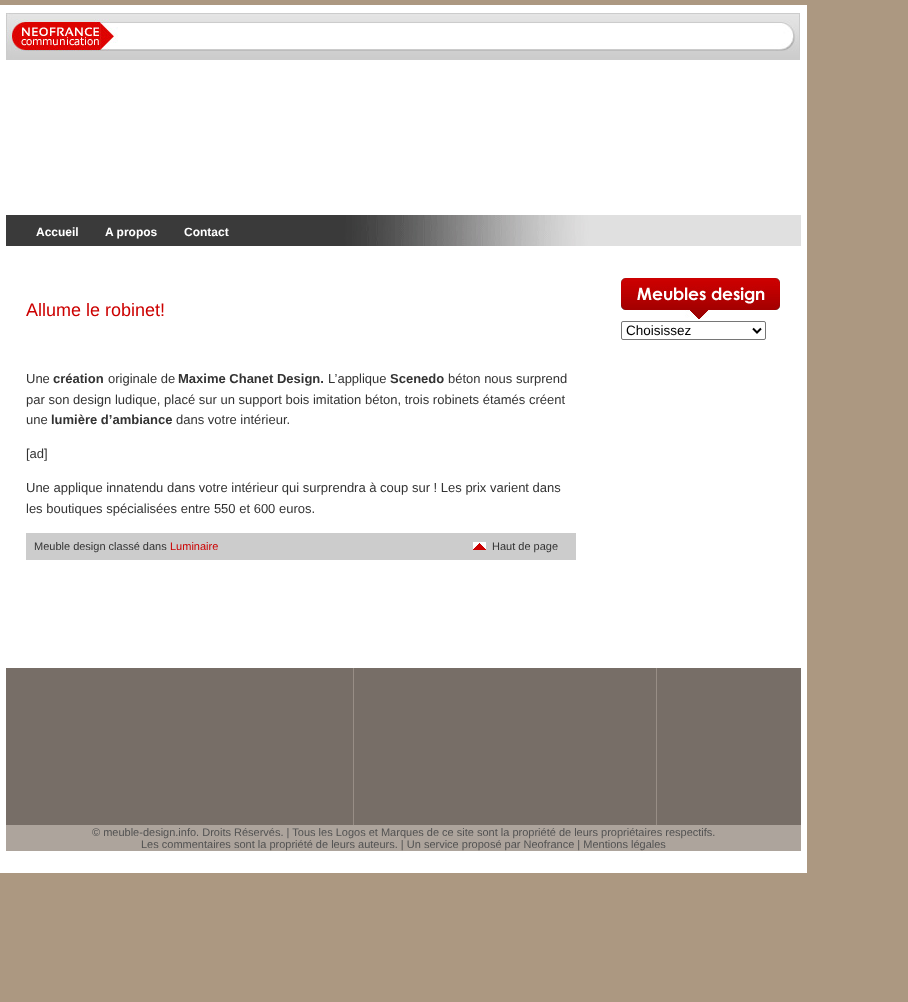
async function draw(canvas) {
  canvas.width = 908
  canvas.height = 1002
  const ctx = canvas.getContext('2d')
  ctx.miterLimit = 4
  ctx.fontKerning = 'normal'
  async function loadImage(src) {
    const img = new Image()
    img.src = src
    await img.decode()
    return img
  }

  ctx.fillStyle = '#ac9881'
  ctx.fillRect(0, 0, 908, 1002)
  ctx.fillStyle = '#fff'
  ctx.fillRect(0, 5, 807, 868)
  ctx.drawImage(await loadImage('image0.png'), 6, 13, 794, 47)
  ctx.drawImage(await loadImage('image1.png'), 6, 215, 795, 31)
  ctx.font = 'bold 12px Liberation Sans'
  ctx.fillText('Accueil', 36, 236)
  ctx.fillText('A propos', 105, 236)
  ctx.fillText('Contact', 184, 236)
  ctx.font = '18px Liberation Sans'
  ctx.fillStyle = '#c00'
  ctx.fillText('Allume le robinet!', 26, 316)
  ctx.font = '13px Liberation Sans'
  ctx.fillStyle = '#333'
  ctx.fillText('Une', 26, 383)
  ctx.font = 'bold 13px Liberation Sans'
  ctx.fillText('création', 53, 383)
  ctx.font = '13px Liberation Sans'
  ctx.fillText('originale de', 108, 383)
  ctx.font = 'bold 13px Liberation Sans'
  ctx.fillText('Maxime Chanet Design.', 178, 383)
  ctx.font = '13px Liberation Sans'
  ctx.fillText('L’applique', 328, 383)
  ctx.font = 'bold 13px Liberation Sans'
  ctx.fillText('Scenedo', 390, 383)
  ctx.font = '13px Liberation Sans'
  ctx.fillText('béton nous surprend', 448, 383)
  ctx.fillText('par son design ludique, placé sur un support bois imitation béton, trois robinets étamés créent', 26, 404)
  ctx.fillText('une', 26, 424)
  ctx.font = 'bold 13px Liberation Sans'
  ctx.fillText('lumière d’ambiance', 51, 424)
  ctx.font = '13px Liberation Sans'
  ctx.fillText('dans votre intérieur.', 176, 424)
  ctx.fillText('[ad]', 26, 458)
  ctx.fillText('Une applique innatendu dans votre intérieur qui surprendra à coup sur ! Les prix varient dans', 26, 492)
  ctx.fillText('les boutiques spécialisées entre 550 et 600 euros.', 26, 513)
  ctx.fillStyle = '#ccc'
  ctx.fillRect(26, 533, 550, 27)
  ctx.font = '11px Liberation Sans'
  ctx.fillStyle = '#333'
  ctx.fillText('Meuble design classé dans', 34, 550)
  ctx.fillStyle = '#c00'
  ctx.fillText('Luminaire', 170, 550)
  ctx.drawImage(await loadImage('image2.png'), 473, 542, 13, 8)
  ctx.fillStyle = '#333'
  ctx.fillText('Haut de page', 492, 550)
  ctx.drawImage(await loadImage('image3.png'), 621, 278, 159, 41)
  ctx.beginPath()
  ctx.roundRect(621.5, 321.5, 144, 18, 1.5)
  ctx.strokeStyle = '#767676'
  ctx.stroke()
  ctx.beginPath()
  ctx.moveTo(753, 328.5)
  ctx.lineTo(757, 332.5)
  ctx.lineTo(761, 328.5)
  ctx.strokeStyle = '#000'
  ctx.lineWidth = 2
  ctx.stroke()
  ctx.font = '13.5px Liberation Sans'
  ctx.fillStyle = '#000'
  ctx.fillText('Choisissez', 626, 335)
  ctx.drawImage(await loadImage('image4.png'), 6, 668, 795, 157)
  ctx.fillStyle = '#ada49c'
  ctx.fillRect(6, 825, 795, 26)
  ctx.font = '11px Liberation Sans'
  ctx.fillStyle = '#525252'
  ctx.fillText('© meuble-design.info. Droits Réservés. | Tous les Logos et Marques de ce site sont la propriété de leurs propriétaires respectifs.', 92, 836)
  ctx.fillText('Les commentaires sont la propriété de leurs auteurs. | Un service proposé par Neofrance | Mentions légales', 141, 848)
}

draw(document.querySelector('canvas'))
